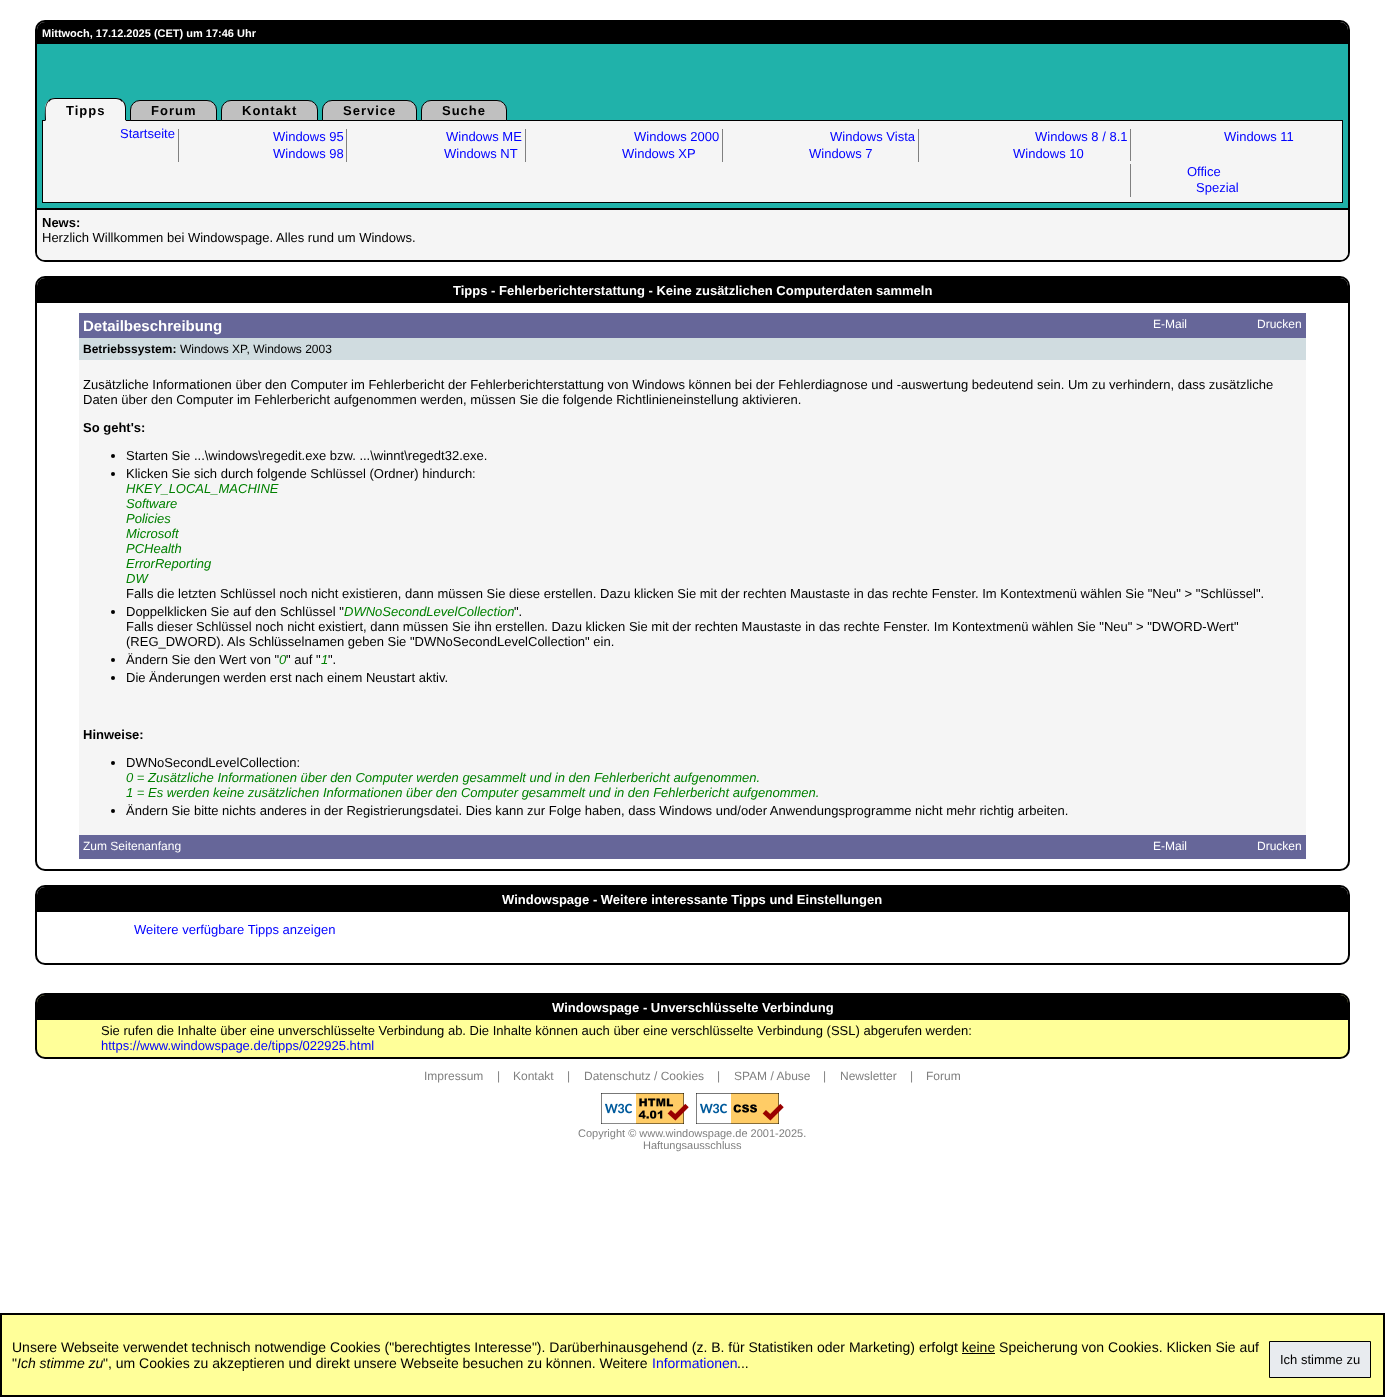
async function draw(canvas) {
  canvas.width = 1385
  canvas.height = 1397
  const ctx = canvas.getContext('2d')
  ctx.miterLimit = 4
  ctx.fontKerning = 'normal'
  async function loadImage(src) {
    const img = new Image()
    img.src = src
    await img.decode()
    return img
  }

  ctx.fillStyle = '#fff'
  ctx.fillRect(0, 0, 1385, 1397)
  ctx.beginPath()
  ctx.roundRect(36, 21, 1313, 240, 9)
  ctx.strokeStyle = '#000'
  ctx.lineWidth = 2
  ctx.stroke()
  ctx.fillStyle = '#000'
  ctx.beginPath()
  ctx.roundRect(37, 22, 1311, 22, [8, 8, 0, 0])
  ctx.fill()
  ctx.font = 'bold 11px Liberation Sans'
  ctx.fillStyle = '#fff'
  ctx.fillText('Mittwoch, 17.12.2025 (CET) um 17:46 Uhr', 42, 37)
  ctx.fillStyle = '#20b2aa'
  ctx.fillRect(37, 44, 1311, 164)
  ctx.fillStyle = '#000'
  ctx.fillRect(42, 120, 1301, 1)
  ctx.fillStyle = '#f5f5f5'
  ctx.beginPath()
  ctx.roundRect(45, 98, 81, 23, [10, 10, 0, 0])
  ctx.fill()
  ctx.letterSpacing = '1px'
  ctx.font = 'bold 13px Liberation Sans'
  ctx.fillStyle = '#000'
  ctx.fillText('Tipps', 66, 115)
  ctx.beginPath()
  ctx.moveTo(55, 98)
  ctx.bezierCurveTo(52, 98, 49, 99, 48, 101)
  ctx.lineTo(49, 102)
  ctx.bezierCurveTo(50, 100, 52, 99, 55, 99)
  ctx.lineTo(116, 99)
  ctx.bezierCurveTo(118, 99, 121, 100, 122, 102)
  ctx.lineTo(123, 101)
  ctx.bezierCurveTo(122, 99, 119, 98, 116, 98)
  ctx.closePath()
  ctx.fill()
  ctx.beginPath()
  ctx.moveTo(126, 121)
  ctx.lineTo(126, 108)
  ctx.bezierCurveTo(126, 105, 125, 102.5, 123, 101)
  ctx.lineTo(122.5, 101.5)
  ctx.bezierCurveTo(124, 103, 125, 105.5, 125, 108)
  ctx.lineTo(125, 120)
  ctx.closePath()
  ctx.fill()
  ctx.fillStyle = '#f5f5f5'
  ctx.beginPath()
  ctx.moveTo(126, 121)
  ctx.lineTo(125, 120)
  ctx.lineTo(46, 120)
  ctx.lineTo(45, 121)
  ctx.closePath()
  ctx.fill()
  ctx.fillStyle = '#000'
  ctx.beginPath()
  ctx.moveTo(45, 121)
  ctx.bezierCurveTo(45, 115, 44, 106, 48, 101)
  ctx.lineTo(48.5, 101.5)
  ctx.bezierCurveTo(44.5, 106.5, 46, 114, 46, 120)
  ctx.closePath()
  ctx.fill()
  ctx.fillStyle = '#c0c0c0'
  ctx.beginPath()
  ctx.roundRect(130.5, 100.5, 86, 20, [9.5, 9.5, 0, 0])
  ctx.fill()
  ctx.lineWidth = 1
  ctx.stroke()
  ctx.fillStyle = '#000'
  ctx.fillText('Forum', 151, 115)
  ctx.fillStyle = '#c0c0c0'
  ctx.beginPath()
  ctx.roundRect(221.5, 100.5, 96, 20, [9.5, 9.5, 0, 0])
  ctx.fill()
  ctx.stroke()
  ctx.fillStyle = '#000'
  ctx.fillText('Kontakt', 242, 115)
  ctx.fillStyle = '#c0c0c0'
  ctx.beginPath()
  ctx.roundRect(322.5, 100.5, 94, 20, [9.5, 9.5, 0, 0])
  ctx.fill()
  ctx.stroke()
  ctx.fillStyle = '#000'
  ctx.fillText('Service', 343, 115)
  ctx.fillStyle = '#c0c0c0'
  ctx.beginPath()
  ctx.roundRect(421.5, 100.5, 85, 20, [9.5, 9.5, 0, 0])
  ctx.fill()
  ctx.stroke()
  ctx.fillStyle = '#000'
  ctx.fillText('Suche', 442, 115)
  ctx.fillStyle = '#f5f5f5'
  ctx.fillRect(43, 121, 1299, 81)
  ctx.fillStyle = '#000'
  ctx.fillRect(1342, 121, 1, 82)
  ctx.fillRect(42, 202, 1301, 1)
  ctx.fillRect(42, 121, 1, 82)
  ctx.letterSpacing = '0px'
  ctx.font = '13px Liberation Sans'
  ctx.fillStyle = '#00f'
  ctx.fillText('Startseite', 120, 138)
  ctx.fillStyle = '#808080'
  ctx.fillRect(178, 129, 1, 33)
  ctx.fillStyle = '#00f'
  ctx.fillText('Windows 95', 273, 141)
  ctx.fillText('Windows 98', 273, 158)
  ctx.fillStyle = '#808080'
  ctx.fillRect(346, 129, 1, 33)
  ctx.fillStyle = '#00f'
  ctx.fillText('Windows ME', 446, 141)
  ctx.fillText('Windows NT', 444, 158)
  ctx.fillStyle = '#808080'
  ctx.fillRect(525, 129, 1, 33)
  ctx.fillStyle = '#00f'
  ctx.fillText('Windows 2000', 634, 141)
  ctx.fillText('Windows XP', 622, 158)
  ctx.fillStyle = '#808080'
  ctx.fillRect(722, 129, 1, 33)
  ctx.fillStyle = '#00f'
  ctx.fillText('Windows Vista', 830, 141)
  ctx.fillText('Windows 7', 809, 158)
  ctx.fillStyle = '#808080'
  ctx.fillRect(918, 129, 1, 33)
  ctx.fillStyle = '#00f'
  ctx.fillText('Windows 8 / 8.1', 1035, 141)
  ctx.fillText('Windows 10', 1013, 158)
  ctx.fillStyle = '#808080'
  ctx.fillRect(1130, 129, 1, 32)
  ctx.fillStyle = '#00f'
  ctx.fillText('Windows 11', 1224, 141)
  ctx.fillStyle = '#808080'
  ctx.fillRect(1130, 164, 1, 33)
  ctx.fillStyle = '#00f'
  ctx.fillText('Office', 1187, 176)
  ctx.fillText('Spezial', 1196, 192)
  ctx.fillStyle = '#f5f5f5'
  ctx.beginPath()
  ctx.roundRect(37, 208, 1311, 52, [0, 0, 8, 8])
  ctx.fill()
  ctx.fillStyle = '#000'
  ctx.fillRect(37, 208, 1311, 2)
  ctx.font = 'bold 13px Liberation Sans'
  ctx.fillText('News:', 42, 227)
  ctx.font = '13px Liberation Sans'
  ctx.fillText('Herzlich Willkommen bei Windowspage. Alles rund um Windows.', 42, 242)
  ctx.beginPath()
  ctx.roundRect(36, 277, 1313, 593, 9)
  ctx.lineWidth = 2
  ctx.stroke()
  ctx.beginPath()
  ctx.roundRect(37, 278, 1311, 25, [8, 8, 0, 0])
  ctx.fill()
  ctx.font = 'bold 13px Liberation Sans'
  ctx.fillStyle = '#fff'
  ctx.fillText('Tipps - Fehlerberichterstattung - Keine zusätzlichen Computerdaten sammeln', 453, 295)
  ctx.fillStyle = '#669'
  ctx.fillRect(79, 313, 1227, 25)
  ctx.font = 'bold 15px Liberation Sans'
  ctx.fillStyle = '#fff'
  ctx.fillText('Detailbeschreibung', 83, 331)
  ctx.font = '12px Liberation Sans'
  ctx.fillText('E-Mail', 1153, 328)
  ctx.fillText('Drucken', 1257, 328)
  ctx.fillStyle = '#d0dce0'
  ctx.fillRect(79, 338, 1227, 22)
  ctx.font = 'bold 12px Liberation Sans'
  ctx.fillStyle = '#000'
  ctx.fillText('Betriebssystem:', 83, 353)
  ctx.font = '12px Liberation Sans'
  ctx.fillText('Windows XP, Windows 2003', 180, 353)
  ctx.fillStyle = '#f5f5f5'
  ctx.fillRect(79, 360, 1227, 475)
  ctx.font = '13px Liberation Sans'
  ctx.fillStyle = '#000'
  ctx.fillText('Zusätzliche Informationen über den Computer im Fehlerbericht der Fehlerberichterstattung von Windows können bei der Fehlerdiagnose und -auswertung bedeutend sein. Um zu verhindern, dass zusätzliche', 83, 389)
  ctx.fillText('Daten über den Computer im Fehlerbericht aufgenommen werden, müssen Sie die folgende Richtlinieneinstellung aktivieren.', 83, 404)
  ctx.font = 'bold 13px Liberation Sans'
  ctx.fillText('So geht\'s:', 83, 432)
  ctx.beginPath()
  ctx.arc(113, 456, 2, 0, 2 * Math.PI)
  ctx.fill()
  ctx.font = '13px Liberation Sans'
  ctx.fillText('Starten Sie ...\\windows\\regedit.exe bzw. ...\\winnt\\regedt32.exe.', 126, 460)
  ctx.beginPath()
  ctx.arc(113, 474, 2, 0, 2 * Math.PI)
  ctx.fill()
  ctx.fillText('Klicken Sie sich durch folgende Schlüssel (Ordner) hindurch:', 126, 478)
  ctx.font = 'italic 13px Liberation Sans'
  ctx.fillStyle = '#008000'
  ctx.fillText('HKEY_LOCAL_MACHINE', 126, 493)
  ctx.fillText('Software', 126, 508)
  ctx.fillText('Policies', 126, 523)
  ctx.fillText('Microsoft', 126, 538)
  ctx.fillText('PCHealth', 126, 553)
  ctx.fillText('ErrorReporting', 126, 568)
  ctx.fillText('DW', 126, 583)
  ctx.font = '13px Liberation Sans'
  ctx.fillStyle = '#000'
  ctx.fillText('Falls die letzten Schlüssel noch nicht existieren, dann müssen Sie diese erstellen. Dazu klicken Sie mit der rechten Maustaste in das rechte Fenster. Im Kontextmenü wählen Sie "Neu" > "Schlüssel".', 126, 598)
  ctx.beginPath()
  ctx.arc(113, 612, 2, 0, 2 * Math.PI)
  ctx.fill()
  ctx.fillText('Doppelklicken Sie auf den Schlüssel "', 126, 616)
  ctx.font = 'italic 13px Liberation Sans'
  ctx.fillStyle = '#008000'
  ctx.fillText('DWNoSecondLevelCollection', 344, 616)
  ctx.font = '13px Liberation Sans'
  ctx.fillStyle = '#000'
  ctx.fillText('".', 514, 616)
  ctx.fillText('Falls dieser Schlüssel noch nicht existiert, dann müssen Sie ihn erstellen. Dazu klicken Sie mit der rechten Maustaste in das rechte Fenster. Im Kontextmenü wählen Sie "Neu" > "DWORD-Wert"', 126, 631)
  ctx.fillText('(REG_DWORD). Als Schlüsselnamen geben Sie "DWNoSecondLevelCollection" ein.', 126, 646)
  ctx.beginPath()
  ctx.arc(113, 660, 2, 0, 2 * Math.PI)
  ctx.fill()
  ctx.fillText('Ändern Sie den Wert von "', 126, 664)
  ctx.font = 'italic 13px Liberation Sans'
  ctx.fillStyle = '#008000'
  ctx.fillText('0', 279, 664)
  ctx.font = '13px Liberation Sans'
  ctx.fillStyle = '#000'
  ctx.fillText('" auf "', 286, 664)
  ctx.font = 'italic 13px Liberation Sans'
  ctx.fillStyle = '#008000'
  ctx.fillText('1', 321, 664)
  ctx.font = '13px Liberation Sans'
  ctx.fillStyle = '#000'
  ctx.fillText('".', 328, 664)
  ctx.beginPath()
  ctx.arc(113, 678, 2, 0, 2 * Math.PI)
  ctx.fill()
  ctx.fillText('Die Änderungen werden erst nach einem Neustart aktiv.', 126, 682)
  ctx.font = 'bold 13px Liberation Sans'
  ctx.fillText('Hinweise:', 83, 739)
  ctx.beginPath()
  ctx.arc(113, 763, 2, 0, 2 * Math.PI)
  ctx.fill()
  ctx.font = '13px Liberation Sans'
  ctx.fillText('DWNoSecondLevelCollection:', 126, 767)
  ctx.font = 'italic 13px Liberation Sans'
  ctx.fillStyle = '#008000'
  ctx.fillText('0 = Zusätzliche Informationen über den Computer werden gesammelt und in den Fehlerbericht aufgenommen.', 126, 782)
  ctx.fillText('1 = Es werden keine zusätzlichen Informationen über den Computer gesammelt und in den Fehlerbericht aufgenommen.', 126, 797)
  ctx.fillStyle = '#000'
  ctx.beginPath()
  ctx.arc(113, 811, 2, 0, 2 * Math.PI)
  ctx.fill()
  ctx.font = '13px Liberation Sans'
  ctx.fillText('Ändern Sie bitte nichts anderes in der Registrierungsdatei. Dies kann zur Folge haben, dass Windows und/oder Anwendungsprogramme nicht mehr richtig arbeiten.', 126, 815)
  ctx.fillStyle = '#669'
  ctx.fillRect(79, 835, 1227, 24)
  ctx.font = '12px Liberation Sans'
  ctx.fillStyle = '#fff'
  ctx.fillText('Zum Seitenanfang', 83, 850)
  ctx.fillText('E-Mail', 1153, 850)
  ctx.fillText('Drucken', 1257, 850)
  ctx.beginPath()
  ctx.roundRect(36, 886, 1313, 78, 9)
  ctx.stroke()
  ctx.fillStyle = '#000'
  ctx.beginPath()
  ctx.roundRect(37, 887, 1311, 25, [8, 8, 0, 0])
  ctx.fill()
  ctx.font = 'bold 13px Liberation Sans'
  ctx.fillStyle = '#fff'
  ctx.fillText('Windowspage - Weitere interessante Tipps und Einstellungen', 502, 904)
  ctx.font = '13px Liberation Sans'
  ctx.fillStyle = '#00f'
  ctx.fillText('Weitere verfügbare Tipps anzeigen', 134, 934)
  ctx.fillStyle = '#ff9'
  ctx.beginPath()
  ctx.roundRect(36, 994, 1313, 64, 9)
  ctx.fill()
  ctx.stroke()
  ctx.fillStyle = '#000'
  ctx.beginPath()
  ctx.roundRect(37, 995, 1311, 25, [8, 8, 0, 0])
  ctx.fill()
  ctx.font = 'bold 13px Liberation Sans'
  ctx.fillStyle = '#fff'
  ctx.fillText('Windowspage - Unverschlüsselte Verbindung', 552, 1012)
  ctx.font = '13px Liberation Sans'
  ctx.fillStyle = '#000'
  ctx.fillText('Sie rufen die Inhalte über eine unverschlüsselte Verbindung ab. Die Inhalte können auch über eine verschlüsselte Verbindung (SSL) abgerufen werden:', 101, 1035)
  ctx.fillStyle = '#00f'
  ctx.fillText('https://www.windowspage.de/tipps/022925.html', 101, 1050)
  ctx.font = '12px Liberation Sans'
  ctx.fillStyle = '#808080'
  ctx.fillText('Impressum', 424, 1080)
  ctx.fillText('|', 497, 1080)
  ctx.fillText('Kontakt', 513, 1080)
  ctx.fillText('|', 567, 1080)
  ctx.fillText('Datenschutz / Cookies', 584, 1080)
  ctx.fillText('|', 717, 1080)
  ctx.fillText('SPAM / Abuse', 734, 1080)
  ctx.fillText('|', 823, 1080)
  ctx.fillText('Newsletter', 840, 1080)
  ctx.fillText('|', 910, 1080)
  ctx.fillText('Forum', 926, 1080)
  ctx.drawImage(await loadImage('image0.png'), 601, 1093, 88, 31)
  ctx.drawImage(await loadImage('image1.png'), 696, 1093, 88, 31)
  ctx.font = '11px Liberation Sans'
  ctx.fillText('Copyright © www.windowspage.de 2001-2025.', 578, 1137)
  ctx.fillText('Haftungsausschluss', 643, 1149)
  ctx.fillStyle = '#ff9'
  ctx.beginPath()
  ctx.rect(1, 1314, 1383, 82)
  ctx.fill()
  ctx.stroke()
  ctx.font = '14px Liberation Sans'
  ctx.fillStyle = '#000'
  ctx.fillText('Unsere Webseite verwendet technisch notwendige Cookies ("berechtigtes Interesse"). Darüberhinausgehend (z. B. für Statistiken oder Marketing) erfolgt keine Speicherung von Cookies. Klicken Sie auf', 12, 1352)
  ctx.fillRect(962, 1353, 33, 1)
  ctx.fillText('"', 12, 1368)
  ctx.font = 'italic 14px Liberation Sans'
  ctx.fillText('Ich stimme zu', 17, 1368)
  ctx.font = '14px Liberation Sans'
  ctx.fillText('", um Cookies zu akzeptieren und direkt unsere Webseite besuchen zu können. Weitere', 103, 1368)
  ctx.fillStyle = '#00f'
  ctx.fillText('Informationen', 652, 1368)
  ctx.fillStyle = '#000'
  ctx.fillText('...', 737, 1368)
  ctx.fillStyle = '#e8ebef'
  ctx.beginPath()
  ctx.rect(1269.5, 1341.5, 101, 36)
  ctx.fill()
  ctx.lineWidth = 1
  ctx.stroke()
  ctx.font = '13px Liberation Sans'
  ctx.fillStyle = '#000'
  ctx.fillText('Ich stimme zu', 1280, 1364)
}

draw(document.querySelector('canvas'))
